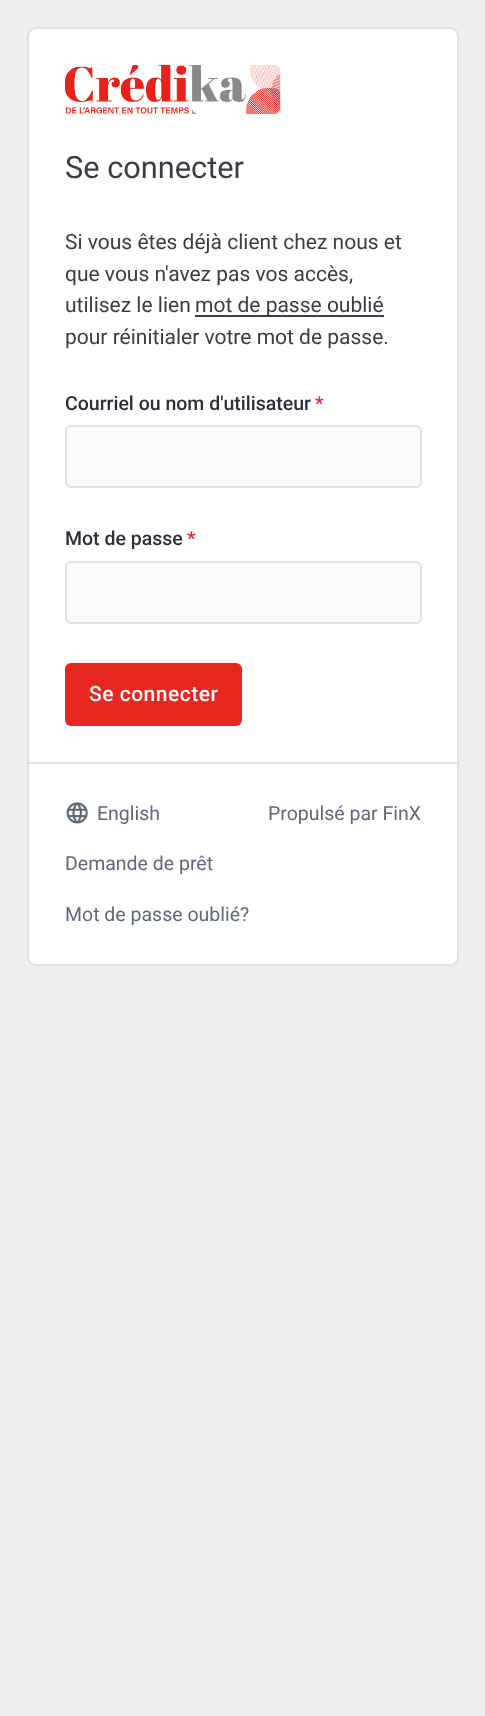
async function draw(canvas) {
  canvas.width = 485
  canvas.height = 1716
  const ctx = canvas.getContext('2d')
  ctx.miterLimit = 4
  ctx.fontKerning = 'normal'
  async function loadImage(src) {
    const img = new Image()
    img.src = src
    await img.decode()
    return img
  }

  ctx.fillStyle = '#edeff1'
  ctx.fillRect(0, 0, 485, 1716)
  ctx.fillStyle = '#fff'
  ctx.beginPath()
  ctx.roundRect(28, 28, 430, 937, 8)
  ctx.fill()
  ctx.strokeStyle = '#dee1e5'
  ctx.lineWidth = 2
  ctx.stroke()
  ctx.drawImage(await loadImage('image0.png'), 65, 65, 216, 49)
  ctx.font = '30.75px Roboto'
  ctx.fillStyle = '#3a3e44'
  ctx.fillText('Se connecter', 65, 178)
  ctx.font = '21px Roboto'
  ctx.fillText('Si vous êtes déjà client chez nous et', 65, 249)
  ctx.fillText('que vous n\'avez pas vos accès,', 65, 281)
  ctx.fillText('utilisez le lien', 65, 312)
  ctx.fillRect(195, 315, 189, 2)
  ctx.fillText('mot de passe oublié', 195, 312)
  ctx.fillText('pour réinitialer votre mot de passe.', 65, 344)
  ctx.font = '500 19.5px Roboto'
  ctx.fillStyle = '#2a2f38'
  ctx.fillText('Courriel ou nom d\'utilisateur', 65, 410)
  ctx.fillStyle = '#dc2626'
  ctx.fillText('*', 315, 410)
  ctx.fillStyle = '#f9fafb'
  ctx.beginPath()
  ctx.roundRect(66, 426, 355, 61, 5)
  ctx.fill()
  ctx.stroke()
  ctx.fillStyle = '#2a2f38'
  ctx.fillText('Mot de passe', 65, 545)
  ctx.fillStyle = '#dc2626'
  ctx.fillText('*', 187, 545)
  ctx.fillStyle = '#f9fafb'
  ctx.beginPath()
  ctx.roundRect(66, 562, 355, 61, 5)
  ctx.fill()
  ctx.stroke()
  ctx.fillStyle = '#e72720'
  ctx.beginPath()
  ctx.roundRect(65, 663, 177, 63, 6)
  ctx.fill()
  ctx.letterSpacing = '0.5px'
  ctx.font = '500 21px Roboto'
  ctx.fillStyle = '#fff'
  ctx.fillText('Se connecter', 89, 701)
  ctx.fillStyle = '#dee1e5'
  ctx.fillRect(29, 762, 429, 2)
  ctx.drawImage(await loadImage('image1.png'), 66, 802, 22, 22)
  ctx.letterSpacing = '0px'
  ctx.font = '19.5px Roboto'
  ctx.fillStyle = '#5e6877'
  ctx.fillText('English', 97, 820)
  ctx.fillText('Demande de prêt', 65, 870)
  ctx.fillText('Mot de passe oublié?', 65, 921)
  ctx.fillText('Propulsé par FinX', 268, 820)
}

draw(document.querySelector('canvas'))
